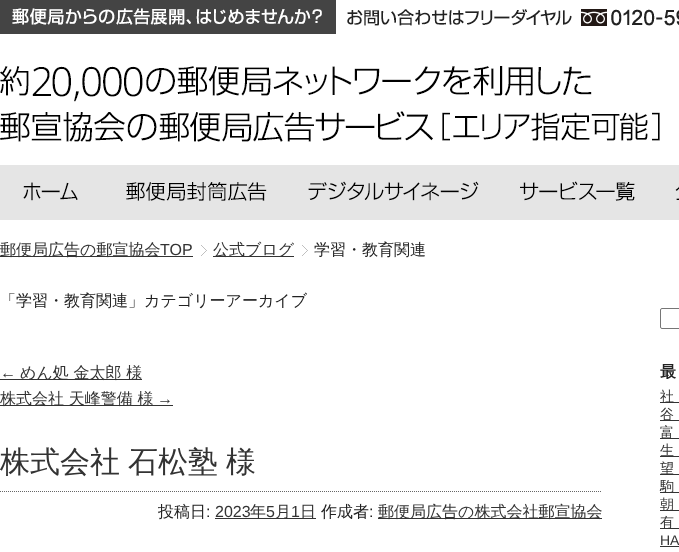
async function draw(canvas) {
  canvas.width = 679
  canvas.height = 552
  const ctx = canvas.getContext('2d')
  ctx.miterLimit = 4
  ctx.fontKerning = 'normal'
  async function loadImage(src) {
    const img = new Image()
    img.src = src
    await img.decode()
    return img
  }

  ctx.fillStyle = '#fff'
  ctx.fillRect(0, 0, 679, 552)
  ctx.drawImage(await loadImage('image0.png'), 0, 0, 679, 34)
  ctx.drawImage(await loadImage('image1.png'), 0, 66, 660, 76)
  ctx.drawImage(await loadImage('image2.png'), 0, 165, 101, 55)
  ctx.drawImage(await loadImage('image3.png'), 101, 165, 189, 55)
  ctx.drawImage(await loadImage('image4.png'), 290, 165, 212, 55)
  ctx.drawImage(await loadImage('image5.png'), 502, 165, 155, 55)
  ctx.drawImage(await loadImage('image6.png'), 657, 165, 22, 55)
  ctx.fillStyle = '#333'
  ctx.fillRect(0, 256, 193, 1)
  ctx.font = '500 16px WenQuanYi Zen Hei'
  ctx.fillText('郵便局広告の郵宣協会', 0, 255)
  ctx.font = '16px Liberation Sans'
  ctx.fillText('TOP', 160, 255)
  ctx.drawImage(await loadImage('image7.png'), 201, 245, 6, 11)
  ctx.fillRect(213, 256, 81, 1)
  ctx.font = '500 16px WenQuanYi Zen Hei'
  ctx.fillText('公式ブログ', 213, 255)
  ctx.drawImage(await loadImage('image7.png'), 302, 245, 6, 11)
  ctx.fillStyle = '#222'
  ctx.fillText('学習・教育関連', 314, 255)
  ctx.fillText('「学習・教育関連」カテゴリーアーカイブ', 0, 306)
  ctx.font = '16px Liberation Sans'
  ctx.fillStyle = '#333'
  ctx.fillText('←', 0, 378)
  ctx.fillRect(0, 379, 142, 1)
  ctx.font = '500 16px WenQuanYi Zen Hei'
  ctx.fillText('めん処 金太郎 様', 20, 378)
  ctx.fillRect(0, 405, 173, 1)
  ctx.fillText('株式会社 天峰警備 様', 0, 404)
  ctx.font = '16px Liberation Sans'
  ctx.fillText('→', 157, 404)
  ctx.beginPath()
  ctx.moveTo(0, 491.5)
  ctx.lineTo(602, 491.5)
  ctx.strokeStyle = '#666'
  ctx.setLineDash([1, 1])
  ctx.stroke()
  ctx.wordSpacing = '-1px'
  ctx.font = '500 30px WenQuanYi Zen Hei'
  ctx.fillText('株式会社 石松塾 様', 0, 472)
  ctx.wordSpacing = '0px'
  ctx.font = '500 16px WenQuanYi Zen Hei'
  ctx.fillStyle = '#222'
  ctx.fillText('投稿日', 158, 517)
  ctx.font = '16px Liberation Sans'
  ctx.fillText(':', 206, 517)
  ctx.fillStyle = '#333'
  ctx.fillText('2023', 215, 517)
  ctx.fillRect(215, 518, 101, 1)
  ctx.font = '500 16px WenQuanYi Zen Hei'
  ctx.fillText('年', 250, 517)
  ctx.font = '16px Liberation Sans'
  ctx.fillText('5', 266, 517)
  ctx.font = '500 16px WenQuanYi Zen Hei'
  ctx.fillText('月', 275, 517)
  ctx.font = '16px Liberation Sans'
  ctx.fillText('1', 291, 517)
  ctx.font = '500 16px WenQuanYi Zen Hei'
  ctx.fillText('日', 300, 517)
  ctx.fillStyle = '#222'
  ctx.fillText('作成者', 321, 517)
  ctx.font = '16px Liberation Sans'
  ctx.fillText(':', 369, 517)
  ctx.fillStyle = '#333'
  ctx.fillRect(378, 518, 224, 1)
  ctx.font = '500 16px WenQuanYi Zen Hei'
  ctx.fillText('郵便局広告の株式会社郵宣協会', 378, 517)
  ctx.beginPath()
  ctx.roundRect(660.5, 308.5, 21, 20, 1.5)
  ctx.strokeStyle = '#767676'
  ctx.setLineDash([])
  ctx.stroke()
  ctx.font = 'bold 16px WenQuanYi Zen Hei'
  ctx.fillStyle = '#222'
  ctx.fillText('最', 660, 377)
  ctx.fillStyle = '#333'
  ctx.fillRect(660, 402, 19, 1)
  ctx.font = '500 14px WenQuanYi Zen Hei'
  ctx.fillText('社', 660, 401)
  ctx.fillRect(660, 420, 19, 1)
  ctx.fillText('谷', 660, 419)
  ctx.fillRect(660, 438, 19, 1)
  ctx.fillText('富', 660, 437)
  ctx.fillText('生', 660, 455)
  ctx.fillRect(660, 456, 19, 1)
  ctx.fillRect(660, 474, 19, 1)
  ctx.fillText('望', 660, 473)
  ctx.fillRect(660, 492, 19, 1)
  ctx.fillText('駒', 660, 491)
  ctx.fillRect(660, 510, 19, 1)
  ctx.fillText('朝', 660, 509)
  ctx.fillRect(660, 528, 19, 1)
  ctx.fillText('有', 660, 527)
  ctx.font = '14px Liberation Sans'
  ctx.fillText('HA', 660, 545)
  ctx.fillRect(660, 546, 19, 1)
}

draw(document.querySelector('canvas'))
